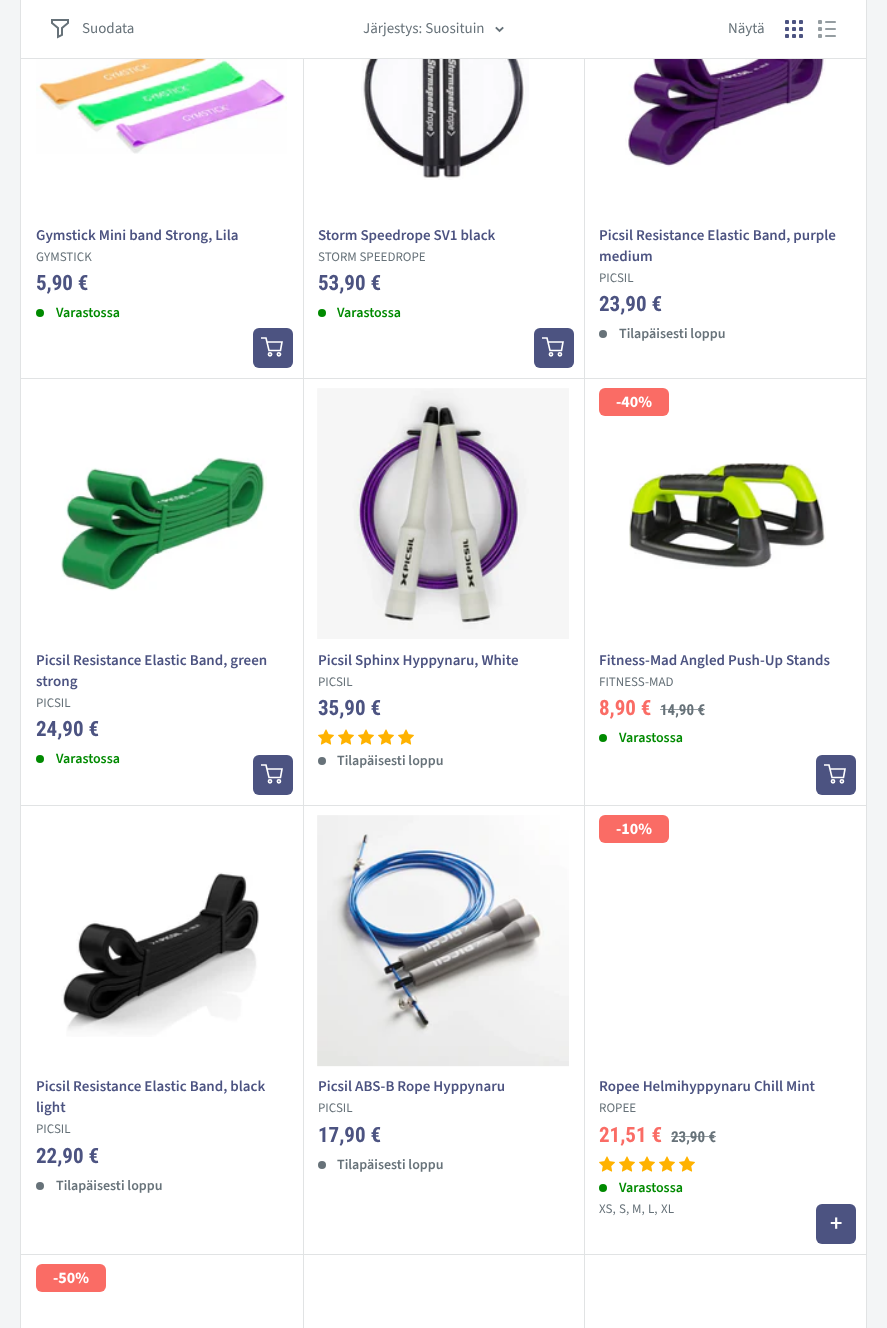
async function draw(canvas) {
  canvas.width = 887
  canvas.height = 1328
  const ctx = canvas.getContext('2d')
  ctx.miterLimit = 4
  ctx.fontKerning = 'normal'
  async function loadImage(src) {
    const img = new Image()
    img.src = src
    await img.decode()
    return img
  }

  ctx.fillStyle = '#f3f5f6'
  ctx.fillRect(0, 0, 887, 1328)
  ctx.fillStyle = '#fff'
  ctx.fillRect(21, 59, 845, 1269)
  ctx.strokeStyle = '#e1e3e4'
  ctx.strokeRect(20.5, -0.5, 846, 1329)
  ctx.fillStyle = '#e1e3e4'
  ctx.fillRect(21, 58, 845, 1)
  ctx.fillStyle = '#fff'
  ctx.fillRect(21, 0, 845, 58)
  ctx.beginPath()
  ctx.moveTo(68, 23)
  ctx.lineTo(62, 28)
  ctx.lineTo(62, 35)
  ctx.lineTo(58, 37)
  ctx.lineTo(58, 28)
  ctx.lineTo(52, 23)
  ctx.lineTo(52, 20)
  ctx.lineTo(68, 20)
  ctx.closePath()
  ctx.strokeStyle = '#677279'
  ctx.lineWidth = 2
  ctx.lineCap = 'square'
  ctx.stroke()
  ctx.font = '15px Source Sans Pro'
  ctx.fillStyle = '#677279'
  ctx.fillText('Suodata', 82, 33)
  ctx.fillText('Järjestys: Suosituin', 363, 33)
  ctx.beginPath()
  ctx.moveTo(502.5, 28)
  ctx.lineTo(499.5, 31)
  ctx.lineTo(496.5, 28)
  ctx.lineWidth = 1.9
  ctx.stroke()
  ctx.fillText('Näytä', 728, 33)
  ctx.drawImage(await loadImage('image0.png'), 785, 20, 18, 18)
  ctx.drawImage(await loadImage('image1.png'), 818, 20, 18, 18)
  ctx.fillStyle = '#e1e3e4'
  ctx.fillRect(21, 378, 845, 1)
  ctx.fillRect(303, 59, 1, 746)
  ctx.drawImage(await loadImage('image2.png'), 36, 59, 251, 95)
  ctx.font = '600 15px Source Sans Pro'
  ctx.fillStyle = '#4c5381'
  ctx.fillText('Gymstick Mini band Strong, Lila', 36, 240)
  ctx.font = '13px Source Sans Pro'
  ctx.fillStyle = '#677279'
  ctx.fillText('GYMSTICK', 36, 261)
  ctx.font = 'bold 21px Roboto Condensed'
  ctx.fillStyle = '#4c5381'
  ctx.fillText('5,90 €', 36, 290)
  ctx.fillStyle = '#008a00'
  ctx.beginPath()
  ctx.arc(40, 313, 4, 0, 2 * Math.PI)
  ctx.fill()
  ctx.font = '600 14px Source Sans Pro'
  ctx.fillText('Varastossa', 56, 317)
  ctx.fillStyle = '#4c5381'
  ctx.beginPath()
  ctx.roundRect(253, 328, 40, 40, 6)
  ctx.fill()
  ctx.beginPath()
  ctx.arc(270, 354.3, 1.6, 0, 2 * Math.PI)
  ctx.strokeStyle = '#fff'
  ctx.lineWidth = 1.6
  ctx.stroke()
  ctx.beginPath()
  ctx.arc(278.9, 354.3, 1.6, 0, 2 * Math.PI)
  ctx.stroke()
  ctx.beginPath()
  ctx.moveTo(267, 342)
  ctx.lineTo(282, 342)
  ctx.lineTo(280.5, 350.5)
  ctx.lineTo(269, 350.5)
  ctx.lineTo(266, 338)
  ctx.lineTo(261, 338)
  ctx.lineCap = 'butt'
  ctx.stroke()
  ctx.drawImage(await loadImage('image3.png'), 361, 59, 168, 121)
  ctx.fillStyle = '#e1e3e4'
  ctx.fillRect(584, 59, 1, 746)
  ctx.font = '600 15px Source Sans Pro'
  ctx.fillStyle = '#4c5381'
  ctx.fillText('Storm Speedrope SV1 black', 318, 240)
  ctx.font = '13px Source Sans Pro'
  ctx.fillStyle = '#677279'
  ctx.fillText('STORM SPEEDROPE', 318, 261)
  ctx.font = 'bold 21px Roboto Condensed'
  ctx.fillStyle = '#4c5381'
  ctx.fillText('53,90 €', 318, 290)
  ctx.fillStyle = '#008a00'
  ctx.beginPath()
  ctx.arc(322, 313, 4, 0, 2 * Math.PI)
  ctx.fill()
  ctx.font = '600 14px Source Sans Pro'
  ctx.fillText('Varastossa', 337, 317)
  ctx.fillStyle = '#4c5381'
  ctx.beginPath()
  ctx.roundRect(534, 328, 40, 40, 6)
  ctx.fill()
  ctx.beginPath()
  ctx.arc(551, 354.3, 1.6, 0, 2 * Math.PI)
  ctx.stroke()
  ctx.beginPath()
  ctx.arc(559.9, 354.3, 1.6, 0, 2 * Math.PI)
  ctx.stroke()
  ctx.beginPath()
  ctx.moveTo(548, 342)
  ctx.lineTo(563, 342)
  ctx.lineTo(561.5, 350.5)
  ctx.lineTo(550, 350.5)
  ctx.lineTo(547, 338)
  ctx.lineTo(542, 338)
  ctx.stroke()
  ctx.drawImage(await loadImage('image4.png'), 625, 59, 201, 108)
  ctx.font = '600 15px Source Sans Pro'
  ctx.fillText('Picsil Resistance Elastic Band, purple', 599, 240)
  ctx.fillText('medium', 599, 261)
  ctx.font = '13px Source Sans Pro'
  ctx.fillStyle = '#677279'
  ctx.fillText('PICSIL', 599, 282)
  ctx.font = 'bold 21px Roboto Condensed'
  ctx.fillStyle = '#4c5381'
  ctx.fillText('23,90 €', 599, 311)
  ctx.fillStyle = '#677279'
  ctx.beginPath()
  ctx.arc(603, 334, 4, 0, 2 * Math.PI)
  ctx.fill()
  ctx.font = '600 14px Source Sans Pro'
  ctx.fillText('Tilapäisesti loppu', 619, 338)
  ctx.drawImage(await loadImage('image5.png'), 60, 457, 207, 134)
  ctx.font = '600 15px Source Sans Pro'
  ctx.fillStyle = '#4c5381'
  ctx.fillText('Picsil Resistance Elastic Band, green', 36, 665)
  ctx.fillText('strong', 36, 686)
  ctx.font = '13px Source Sans Pro'
  ctx.fillStyle = '#677279'
  ctx.fillText('PICSIL', 36, 707)
  ctx.font = 'bold 21px Roboto Condensed'
  ctx.fillStyle = '#4c5381'
  ctx.fillText('24,90 €', 36, 736)
  ctx.fillStyle = '#008a00'
  ctx.beginPath()
  ctx.arc(40, 759, 4, 0, 2 * Math.PI)
  ctx.fill()
  ctx.font = '600 14px Source Sans Pro'
  ctx.fillText('Varastossa', 56, 763)
  ctx.fillStyle = '#4c5381'
  ctx.beginPath()
  ctx.roundRect(253, 755, 40, 40, 6)
  ctx.fill()
  ctx.beginPath()
  ctx.arc(270, 781.3, 1.6, 0, 2 * Math.PI)
  ctx.stroke()
  ctx.beginPath()
  ctx.arc(278.9, 781.3, 1.6, 0, 2 * Math.PI)
  ctx.stroke()
  ctx.beginPath()
  ctx.moveTo(267, 769)
  ctx.lineTo(282, 769)
  ctx.lineTo(280.5, 777.5)
  ctx.lineTo(269, 777.5)
  ctx.lineTo(266, 765)
  ctx.lineTo(261, 765)
  ctx.stroke()
  ctx.fillStyle = '#e1e3e4'
  ctx.fillRect(21, 805, 845, 1)
  ctx.drawImage(await loadImage('image6.png'), 317, 388, 252, 251)
  ctx.font = '600 15px Source Sans Pro'
  ctx.fillStyle = '#4c5381'
  ctx.fillText('Picsil Sphinx Hyppynaru, White', 318, 665)
  ctx.font = '13px Source Sans Pro'
  ctx.fillStyle = '#677279'
  ctx.fillText('PICSIL', 318, 686)
  ctx.font = 'bold 21px Roboto Condensed'
  ctx.fillStyle = '#4c5381'
  ctx.fillText('35,90 €', 318, 715)
  ctx.drawImage(await loadImage('image7.png'), 318, 729, 16, 16)
  ctx.drawImage(await loadImage('image7.png'), 338, 729, 16, 16)
  ctx.drawImage(await loadImage('image7.png'), 358, 729, 16, 16)
  ctx.drawImage(await loadImage('image7.png'), 378, 729, 16, 16)
  ctx.drawImage(await loadImage('image7.png'), 398, 729, 16, 16)
  ctx.fillStyle = '#677279'
  ctx.beginPath()
  ctx.arc(322, 761, 4, 0, 2 * Math.PI)
  ctx.fill()
  ctx.font = '600 14px Source Sans Pro'
  ctx.fillText('Tilapäisesti loppu', 337, 765)
  ctx.fillStyle = '#fa6c65'
  ctx.beginPath()
  ctx.roundRect(599, 388, 70, 28, 6)
  ctx.fill()
  ctx.font = 'bold 16px Source Sans Pro'
  ctx.fillStyle = '#fff'
  ctx.fillText('-40%', 616, 407)
  ctx.drawImage(await loadImage('image8.png'), 629, 462, 197, 107)
  ctx.font = '600 15px Source Sans Pro'
  ctx.fillStyle = '#4c5381'
  ctx.fillText('Fitness-Mad Angled Push-Up Stands', 599, 665)
  ctx.font = '13px Source Sans Pro'
  ctx.fillStyle = '#677279'
  ctx.fillText('FITNESS-MAD', 599, 686)
  ctx.font = 'bold 21px Roboto Condensed'
  ctx.fillStyle = '#fa6c65'
  ctx.fillText('8,90 €', 599, 715)
  ctx.font = 'bold 15px Roboto Condensed'
  ctx.fillStyle = '#677279'
  ctx.fillText('14,90 €', 660, 715)
  ctx.fillStyle = '#677279b3'
  ctx.fillRect(660, 709, 45, 1)
  ctx.fillStyle = '#008a00'
  ctx.beginPath()
  ctx.arc(603, 738, 4, 0, 2 * Math.PI)
  ctx.fill()
  ctx.font = '600 14px Source Sans Pro'
  ctx.fillText('Varastossa', 619, 742)
  ctx.fillStyle = '#4c5381'
  ctx.beginPath()
  ctx.roundRect(816, 755, 40, 40, 6)
  ctx.fill()
  ctx.beginPath()
  ctx.arc(833, 781.3, 1.6, 0, 2 * Math.PI)
  ctx.stroke()
  ctx.beginPath()
  ctx.arc(841.9, 781.3, 1.6, 0, 2 * Math.PI)
  ctx.stroke()
  ctx.beginPath()
  ctx.moveTo(830, 769)
  ctx.lineTo(845, 769)
  ctx.lineTo(843.5, 777.5)
  ctx.lineTo(832, 777.5)
  ctx.lineTo(829, 765)
  ctx.lineTo(824, 765)
  ctx.stroke()
  ctx.fillStyle = '#e1e3e4'
  ctx.fillRect(21, 1254, 845, 1)
  ctx.fillRect(303, 805, 1, 523)
  ctx.drawImage(await loadImage('image9.png'), 61, 872, 198, 165)
  ctx.font = '600 15px Source Sans Pro'
  ctx.fillStyle = '#4c5381'
  ctx.fillText('Picsil Resistance Elastic Band, black', 36, 1091)
  ctx.fillText('light', 36, 1112)
  ctx.font = '13px Source Sans Pro'
  ctx.fillStyle = '#677279'
  ctx.fillText('PICSIL', 36, 1133)
  ctx.font = 'bold 21px Roboto Condensed'
  ctx.fillStyle = '#4c5381'
  ctx.fillText('22,90 €', 36, 1163)
  ctx.fillStyle = '#677279'
  ctx.beginPath()
  ctx.arc(40, 1186, 4, 0, 2 * Math.PI)
  ctx.fill()
  ctx.font = '600 14px Source Sans Pro'
  ctx.fillText('Tilapäisesti loppu', 56, 1190)
  ctx.drawImage(await loadImage('image10.png'), 317, 815, 252, 252)
  ctx.fillStyle = '#e1e3e4'
  ctx.fillRect(584, 805, 1, 523)
  ctx.font = '600 15px Source Sans Pro'
  ctx.fillStyle = '#4c5381'
  ctx.fillText('Picsil ABS-B Rope Hyppynaru', 318, 1091)
  ctx.font = '13px Source Sans Pro'
  ctx.fillStyle = '#677279'
  ctx.fillText('PICSIL', 318, 1112)
  ctx.font = 'bold 21px Roboto Condensed'
  ctx.fillStyle = '#4c5381'
  ctx.fillText('17,90 €', 318, 1142)
  ctx.fillStyle = '#677279'
  ctx.beginPath()
  ctx.arc(322, 1165, 4, 0, 2 * Math.PI)
  ctx.fill()
  ctx.font = '600 14px Source Sans Pro'
  ctx.fillText('Tilapäisesti loppu', 337, 1169)
  ctx.fillStyle = '#fa6c65'
  ctx.beginPath()
  ctx.roundRect(599, 815, 70, 28, 6)
  ctx.fill()
  ctx.font = 'bold 16px Source Sans Pro'
  ctx.fillStyle = '#fff'
  ctx.fillText('-10%', 616, 834)
  ctx.font = '600 15px Source Sans Pro'
  ctx.fillStyle = '#4c5381'
  ctx.fillText('Ropee Helmihyppynaru Chill Mint', 599, 1091)
  ctx.font = '13px Source Sans Pro'
  ctx.fillStyle = '#677279'
  ctx.fillText('ROPEE', 599, 1112)
  ctx.font = 'bold 21px Roboto Condensed'
  ctx.fillStyle = '#fa6c65'
  ctx.fillText('21,51 €', 599, 1142)
  ctx.font = 'bold 15px Roboto Condensed'
  ctx.fillStyle = '#677279'
  ctx.fillText('23,90 €', 671, 1142)
  ctx.fillStyle = '#677279b3'
  ctx.fillRect(671, 1136, 45, 1)
  ctx.drawImage(await loadImage('image7.png'), 599, 1156, 16, 16)
  ctx.drawImage(await loadImage('image7.png'), 619, 1156, 16, 16)
  ctx.drawImage(await loadImage('image7.png'), 639, 1156, 16, 16)
  ctx.drawImage(await loadImage('image7.png'), 659, 1156, 16, 16)
  ctx.drawImage(await loadImage('image7.png'), 679, 1156, 16, 16)
  ctx.fillStyle = '#008a00'
  ctx.beginPath()
  ctx.arc(603, 1188, 4, 0, 2 * Math.PI)
  ctx.fill()
  ctx.font = '600 14px Source Sans Pro'
  ctx.fillText('Varastossa', 619, 1192)
  ctx.font = '13px Source Sans Pro'
  ctx.fillStyle = '#677279'
  ctx.fillText('XS,', 599, 1213)
  ctx.fillText('S,', 619, 1213)
  ctx.fillText('M,', 632, 1213)
  ctx.fillText('L,', 648, 1213)
  ctx.fillText('XL', 661, 1213)
  ctx.fillStyle = '#4c5381'
  ctx.beginPath()
  ctx.roundRect(816, 1204, 40, 40, 6)
  ctx.fill()
  ctx.font = '600 24px Source Sans Pro'
  ctx.fillStyle = '#fff'
  ctx.fillText('+', 830, 1231)
  ctx.fillStyle = '#fa6c65'
  ctx.beginPath()
  ctx.roundRect(36, 1264, 70, 28, 6)
  ctx.fill()
  ctx.font = 'bold 16px Source Sans Pro'
  ctx.fillStyle = '#fff'
  ctx.fillText('-50%', 53, 1283)
}

draw(document.querySelector('canvas'))
